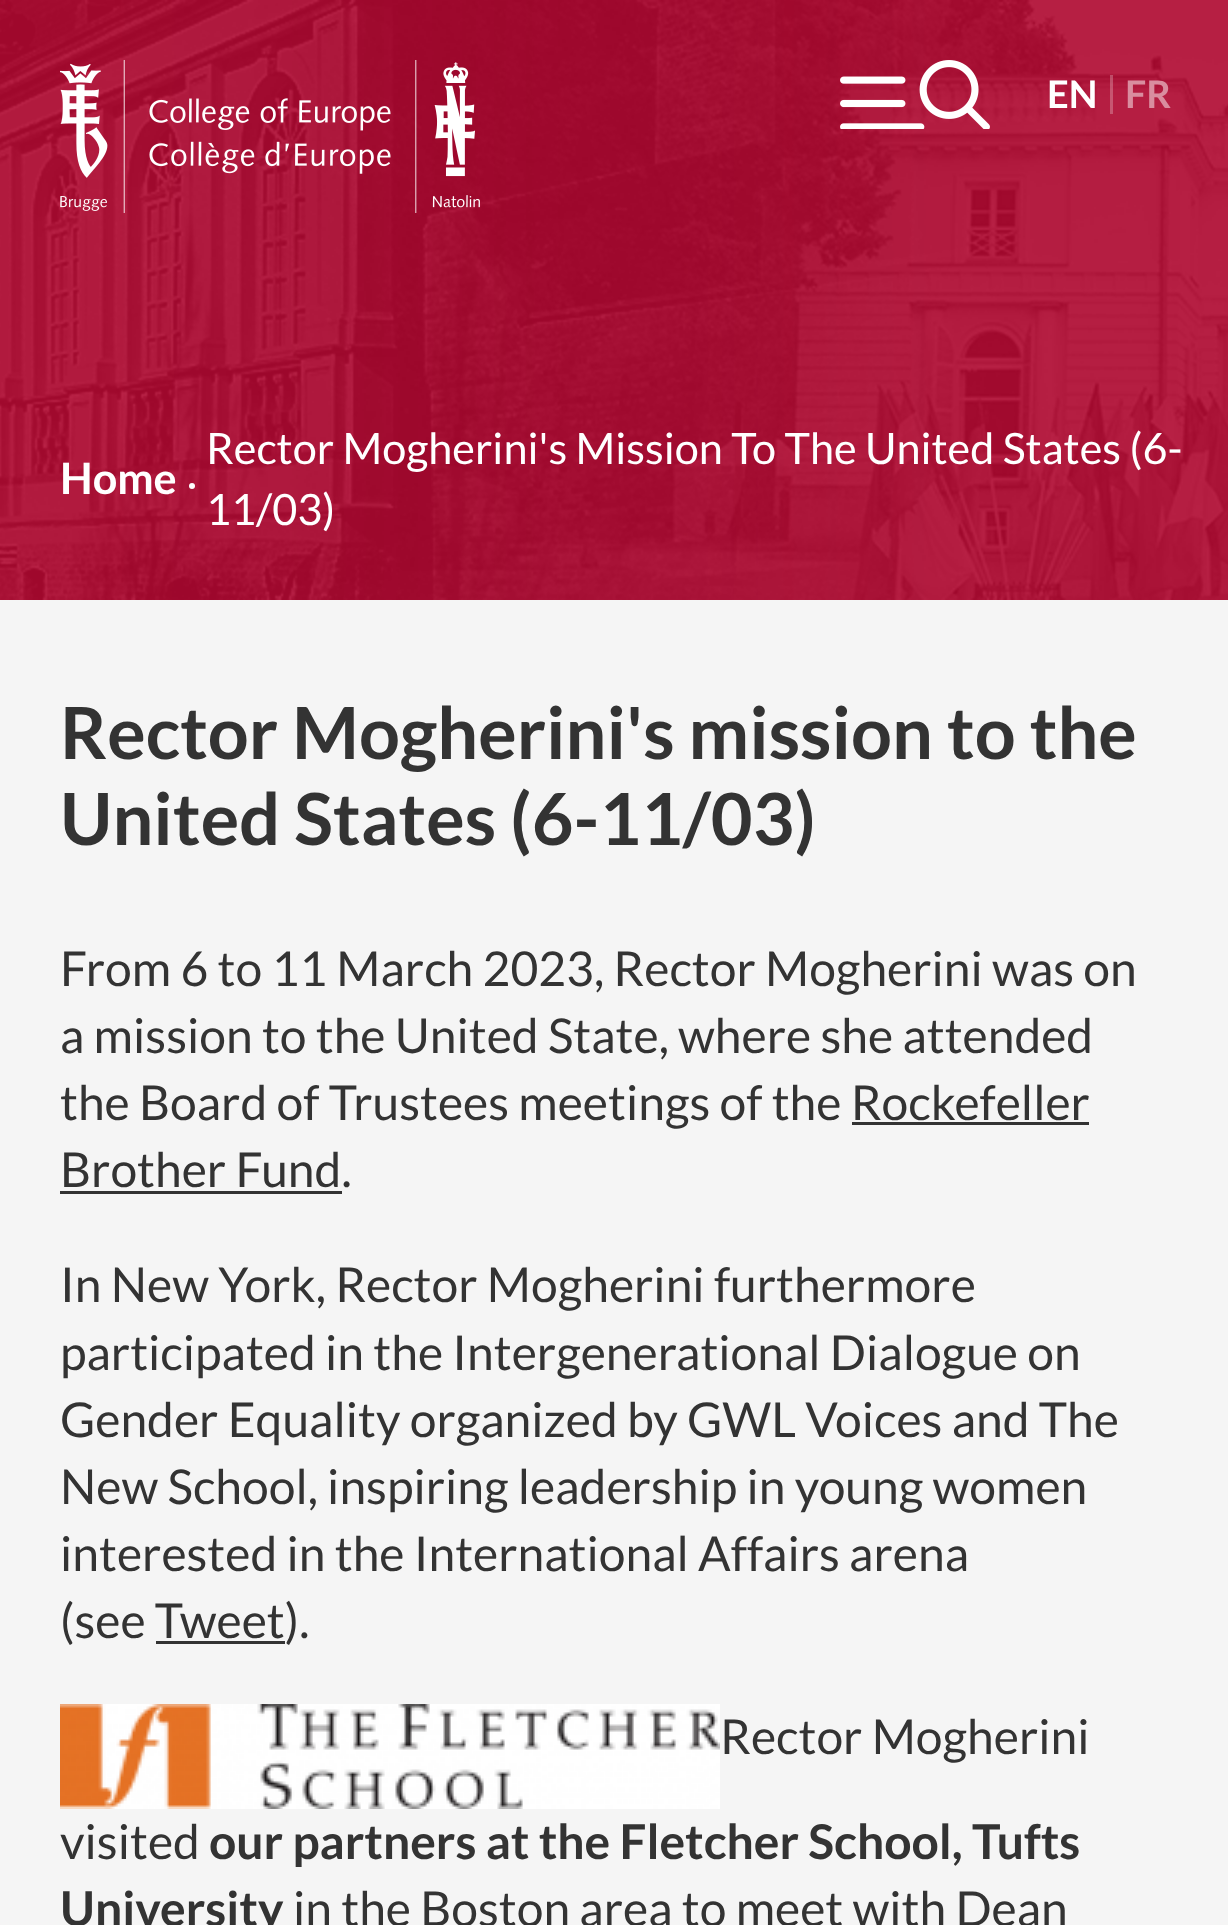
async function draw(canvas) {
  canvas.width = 1228
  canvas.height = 1925
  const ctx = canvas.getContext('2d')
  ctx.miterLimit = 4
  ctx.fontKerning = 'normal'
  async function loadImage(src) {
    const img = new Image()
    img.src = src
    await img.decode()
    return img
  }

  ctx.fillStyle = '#f5f5f5'
  ctx.fillRect(0, 0, 1228, 1925)
  ctx.fillStyle = '#b20932'
  ctx.fillRect(0, 0, 1228, 600)
  ctx.drawImage(await loadImage('image1.png'), 0, 0, 1228, 600)
  ctx.drawImage(await loadImage('image0.png'), 840, 60, 150, 69)
  ctx.drawImage(await loadImage('image2.png'), 60, 60, 420, 153)
  ctx.font = 'bold 38px Lato'
  ctx.fillStyle = '#fff'
  ctx.fillText('EN', 1047, 108)
  ctx.fillStyle = '#ffffff40'
  ctx.fillRect(1110, 75, 3, 39)
  ctx.fillStyle = '#d98d9f'
  ctx.fillText('FR', 1125, 108)
  ctx.font = 'bold 43.2px Lato'
  ctx.fillStyle = '#fff'
  ctx.fillText('Home', 60, 494)
  ctx.font = '43.2px Lato'
  ctx.fillText('Rector Mogherini\'s Mission To The United States (6-', 206, 464)
  ctx.beginPath()
  ctx.arc(192, 486, 3, 0, 2 * Math.PI)
  ctx.fill()
  ctx.fillText('11/03)', 206, 525)
  ctx.font = 'bold 72px Lato'
  ctx.fillStyle = '#333'
  ctx.fillText('Rector Mogherini\'s mission to the', 60, 759)
  ctx.fillText('United States (6-11/03)', 60, 845)
  ctx.font = '48px Lato'
  ctx.fillText('From 6 to 11 March 2023, Rector Mogherini was on', 60, 986)
  ctx.fillText('a mission to the United State, where she attended', 60, 1053)
  ctx.fillText('the Board of Trustees meetings of the Rockefeller', 60, 1120)
  ctx.fillRect(852, 1122, 237, 3)
  ctx.fillText('Brother Fund.', 60, 1187)
  ctx.fillRect(60, 1191, 282, 3)
  ctx.fillText('In New York, Rector Mogherini furthermore', 60, 1302)
  ctx.fillText('participated in the Intergenerational Dialogue on', 60, 1370)
  ctx.fillText('Gender Equality organized by GWL Voices and The', 60, 1437)
  ctx.fillText('New School, inspiring leadership in young women', 60, 1504)
  ctx.fillText('interested in the International Affairs arena', 60, 1571)
  ctx.fillText('(see Tweet).', 60, 1638)
  ctx.fillRect(156, 1641, 129, 3)
  ctx.drawImage(await loadImage('image3.png'), 60, 1704, 660, 105)
  ctx.fillText('Rector Mogherini', 720, 1754)
  ctx.fillText('visited', 60, 1859)
  ctx.font = 'bold 48px Lato'
  ctx.fillText('our partners at the Fletcher School, Tufts', 209, 1859)
  ctx.fillText('University', 60, 1926)
  ctx.font = '48px Lato'
  ctx.fillText('in the Boston area to meet with Dean', 293, 1926)
}

draw(document.querySelector('canvas'))
